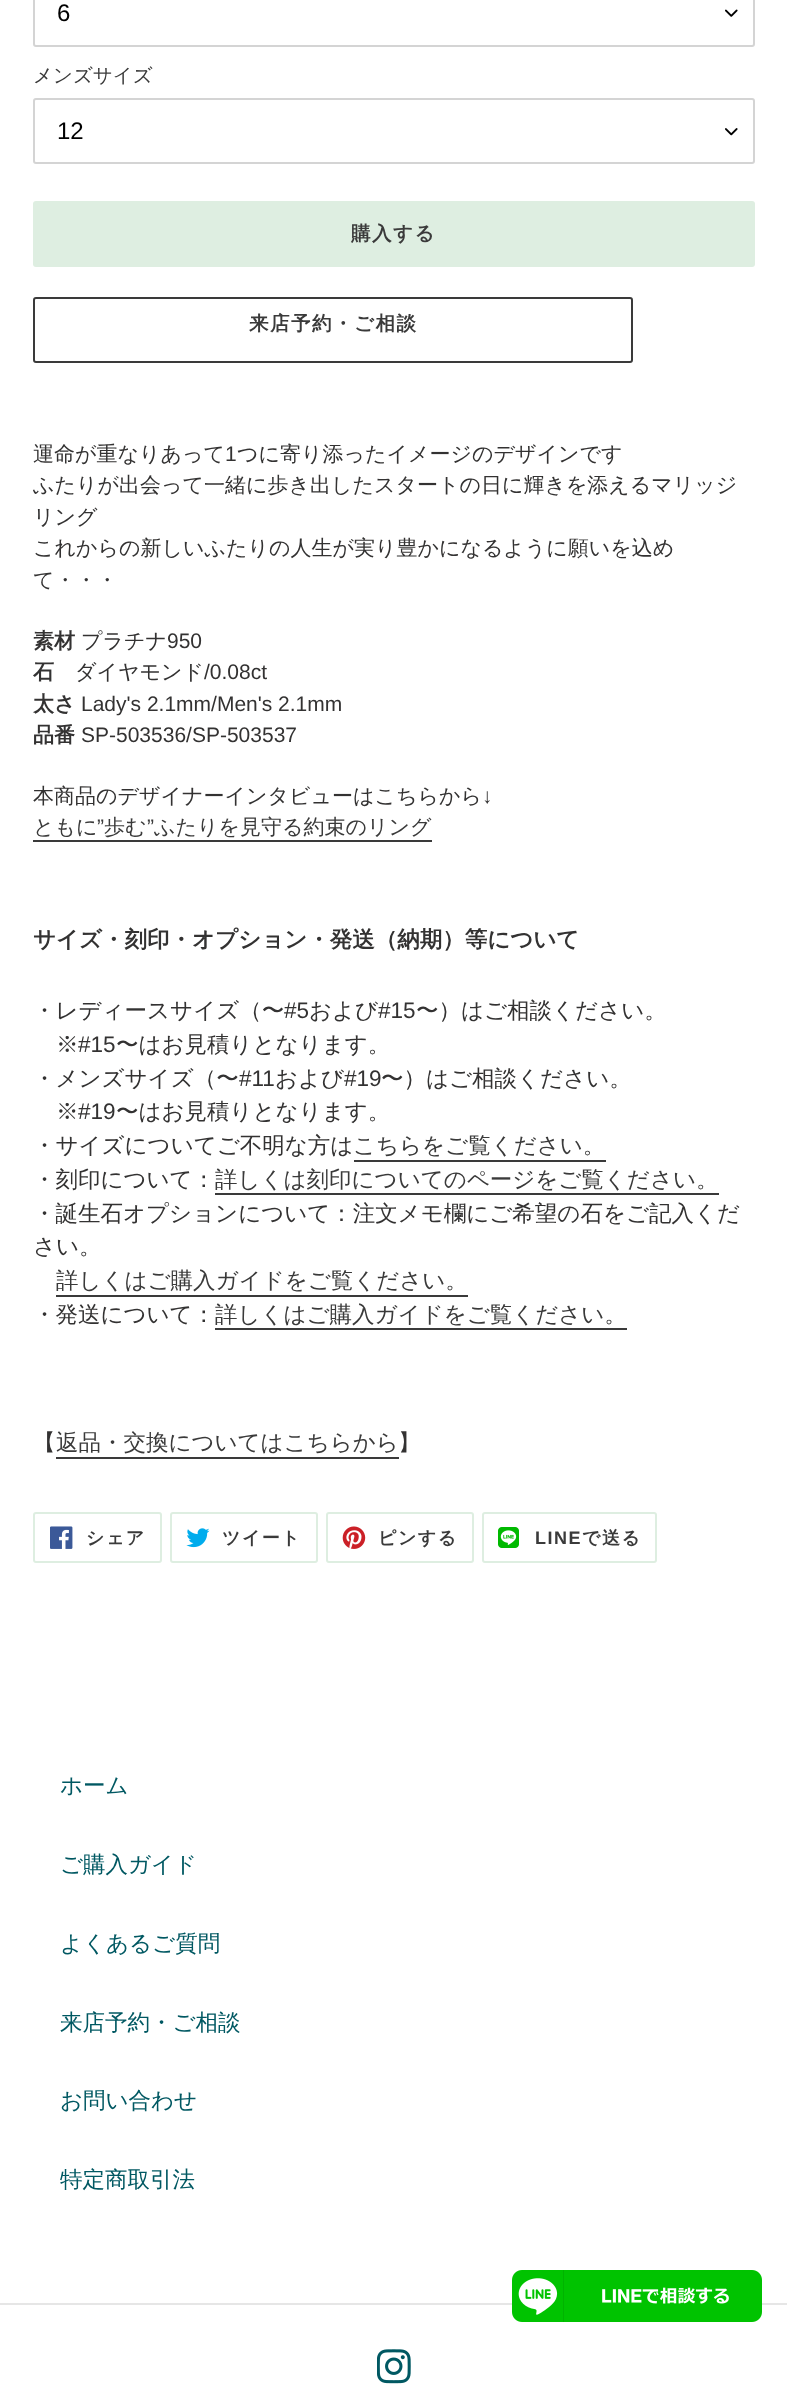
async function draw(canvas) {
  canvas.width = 787
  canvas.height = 2393
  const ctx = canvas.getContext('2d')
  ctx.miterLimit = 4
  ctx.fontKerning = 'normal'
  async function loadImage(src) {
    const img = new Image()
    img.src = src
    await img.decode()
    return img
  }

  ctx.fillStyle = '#fff'
  ctx.fillRect(0, 0, 787, 2393)
  ctx.drawImage(await loadImage('image0.png'), 725, 9, 13, 8)
  ctx.beginPath()
  ctx.roundRect(34, -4, 720, 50, 2)
  ctx.strokeStyle = '#d4d4d4'
  ctx.lineWidth = 2
  ctx.stroke()
  ctx.font = '24px Liberation Sans'
  ctx.fillStyle = '#000'
  ctx.fillText('6', 57, 21)
  ctx.font = '500 19.5px WenQuanYi Zen Hei'
  ctx.fillStyle = '#3a3a3a'
  ctx.fillText('メンズサイズ', 33, 82)
  ctx.drawImage(await loadImage('image1.png'), 725, 128, 13, 8)
  ctx.beginPath()
  ctx.roundRect(34, 99, 720, 64, 2)
  ctx.stroke()
  ctx.font = '24px Liberation Sans'
  ctx.fillStyle = '#000'
  ctx.fillText('12', 57, 139)
  ctx.fillStyle = '#deeee1'
  ctx.beginPath()
  ctx.roundRect(33, 201, 722, 66, 3)
  ctx.fill()
  ctx.letterSpacing = '1.5px'
  ctx.font = 'bold 19.5px WenQuanYi Zen Hei'
  ctx.fillStyle = '#3a3a3a'
  ctx.fillText('購入する', 351, 240)
  ctx.beginPath()
  ctx.roundRect(34, 298, 598, 64, 2)
  ctx.strokeStyle = '#3a3a3a'
  ctx.stroke()
  ctx.fillText('来店予約・ご相談', 249, 330)
  ctx.letterSpacing = '0px'
  ctx.font = '500 21px WenQuanYi Zen Hei'
  ctx.fillStyle = '#333232'
  ctx.fillText('運命が重なりあって', 33, 461)
  ctx.font = '21px Liberation Sans'
  ctx.fillText('1', 225, 461)
  ctx.font = '500 21px WenQuanYi Zen Hei'
  ctx.fillText('つに寄り添ったイメージのデザインです', 237, 461)
  ctx.fillText('ふたりが出会って一緒に歩き出したスタートの日に輝きを添えるマリッジ', 33, 492)
  ctx.fillText('リング', 33, 524)
  ctx.fillText('これからの新しいふたりの人生が実り豊かになるように願いを込め', 33, 555)
  ctx.fillText('て・・・', 33, 587)
  ctx.font = 'bold 21px WenQuanYi Zen Hei'
  ctx.fillText('素材', 33, 648)
  ctx.font = '500 21px WenQuanYi Zen Hei'
  ctx.fillText('プラチナ', 81, 648)
  ctx.font = '21px Liberation Sans'
  ctx.fillText('950', 167, 648)
  ctx.font = 'bold 21px WenQuanYi Zen Hei'
  ctx.fillText('石', 33, 679)
  ctx.font = '500 21px WenQuanYi Zen Hei'
  ctx.fillText('ダイヤモンド', 75, 679)
  ctx.font = '21px Liberation Sans'
  ctx.fillText('/0.08ct', 204, 679)
  ctx.font = 'bold 21px WenQuanYi Zen Hei'
  ctx.fillText('太さ', 33, 711)
  ctx.font = '21px Liberation Sans'
  ctx.fillText('Lady\'s 2.1mm/Men\'s 2.1mm', 81, 711)
  ctx.font = 'bold 21px WenQuanYi Zen Hei'
  ctx.fillText('品番', 33, 742)
  ctx.font = '21px Liberation Sans'
  ctx.fillText('SP-503536/SP-503537', 81, 742)
  ctx.font = '500 21px WenQuanYi Zen Hei'
  ctx.fillText('本商品のデザイナーインタビューはこちらから', 33, 803)
  ctx.font = '21px Liberation Sans'
  ctx.fillText('↓', 482, 803)
  ctx.font = '500 21px WenQuanYi Zen Hei'
  ctx.fillStyle = '#3a3a3a'
  ctx.fillText('ともに', 33, 834)
  ctx.fillRect(33, 840, 399, 2)
  ctx.font = '21px Liberation Sans'
  ctx.fillText('”', 97, 834)
  ctx.font = '500 21px WenQuanYi Zen Hei'
  ctx.fillText('歩む', 104, 834)
  ctx.font = '21px Liberation Sans'
  ctx.fillText('”', 147, 834)
  ctx.font = '500 21px WenQuanYi Zen Hei'
  ctx.fillText('ふたりを見守る約束のリング', 154, 834)
  ctx.font = 'bold 22.5px WenQuanYi Zen Hei'
  ctx.fillStyle = '#333232'
  ctx.fillText('サイズ・刻印・オプション・発送（納期）等について', 33, 947)
  ctx.font = '500 22.5px WenQuanYi Zen Hei'
  ctx.fillText('・レディースサイズ（〜', 33, 1018)
  ctx.font = '22.5px Liberation Sans'
  ctx.fillText('#5', 284, 1018)
  ctx.font = '500 22.5px WenQuanYi Zen Hei'
  ctx.fillText('および', 309, 1018)
  ctx.font = '22.5px Liberation Sans'
  ctx.fillText('#15', 378, 1018)
  ctx.font = '500 22.5px WenQuanYi Zen Hei'
  ctx.fillText('〜）はご相談ください。', 416, 1018)
  ctx.fillText('※', 56, 1052)
  ctx.font = '22.5px Liberation Sans'
  ctx.fillText('#15', 78, 1052)
  ctx.font = '500 22.5px WenQuanYi Zen Hei'
  ctx.fillText('〜はお見積りとなります。', 116, 1052)
  ctx.fillText('・メンズサイズ（〜', 33, 1086)
  ctx.font = '22.5px Liberation Sans'
  ctx.fillText('#11', 239, 1086)
  ctx.font = '500 22.5px WenQuanYi Zen Hei'
  ctx.fillText('および', 275, 1086)
  ctx.font = '22.5px Liberation Sans'
  ctx.fillText('#19', 344, 1086)
  ctx.font = '500 22.5px WenQuanYi Zen Hei'
  ctx.fillText('〜）はご相談ください。', 381, 1086)
  ctx.fillText('※', 56, 1119)
  ctx.font = '22.5px Liberation Sans'
  ctx.fillText('#19', 78, 1119)
  ctx.font = '500 22.5px WenQuanYi Zen Hei'
  ctx.fillText('〜はお見積りとなります。', 116, 1119)
  ctx.fillText('・サイズについてご不明な方は', 33, 1153)
  ctx.fillStyle = '#3a3a3a'
  ctx.fillText('こちらをご覧ください。', 353, 1153)
  ctx.fillRect(354, 1160, 252, 2)
  ctx.fillStyle = '#333232'
  ctx.fillText('・刻印について：', 33, 1187)
  ctx.fillStyle = '#3a3a3a'
  ctx.fillText('詳しくは刻印についてのページをご覧ください。', 215, 1187)
  ctx.fillRect(215, 1193, 504, 2)
  ctx.fillStyle = '#333232'
  ctx.fillText('・誕生石オプションについて：注文メモ欄にご希望の石をご記入くだ', 33, 1221)
  ctx.fillText('さい。', 33, 1254)
  ctx.fillStyle = '#3a3a3a'
  ctx.fillText('詳しくはご購入ガイドをご覧ください。', 56, 1288)
  ctx.fillRect(56, 1295, 412, 2)
  ctx.fillStyle = '#333232'
  ctx.fillText('・発送について：', 33, 1322)
  ctx.fillStyle = '#3a3a3a'
  ctx.fillText('詳しくはご購入ガイドをご覧ください。', 215, 1322)
  ctx.fillRect(215, 1328, 412, 2)
  ctx.fillStyle = '#333232'
  ctx.fillText('【', 33, 1450)
  ctx.fillStyle = '#3a3a3a'
  ctx.fillText('返品・交換についてはこちらから', 56, 1450)
  ctx.fillRect(56, 1457, 343, 2)
  ctx.fillStyle = '#333232'
  ctx.fillText('】', 398, 1450)
  ctx.beginPath()
  ctx.roundRect(34, 1513, 127, 49, 2)
  ctx.strokeStyle = '#deeee1'
  ctx.stroke()
  ctx.drawImage(await loadImage('image2.png'), 50, 1526, 23, 23)
  ctx.letterSpacing = '1.5px'
  ctx.font = 'bold 18px WenQuanYi Zen Hei'
  ctx.fillStyle = '#3a3a3a'
  ctx.fillText('シェア', 86, 1544)
  ctx.beginPath()
  ctx.roundRect(171, 1513, 146, 49, 2)
  ctx.stroke()
  ctx.drawImage(await loadImage('image3.png'), 186, 1528, 24, 20)
  ctx.fillText('ツイート', 222, 1544)
  ctx.beginPath()
  ctx.roundRect(327, 1513, 146, 49, 2)
  ctx.stroke()
  ctx.drawImage(await loadImage('image4.png'), 342, 1526, 24, 23)
  ctx.fillText('ピンする', 378, 1544)
  ctx.beginPath()
  ctx.roundRect(483, 1513, 173, 49, 2)
  ctx.stroke()
  ctx.drawImage(await loadImage('image5.png'), 498, 1527, 21, 21)
  ctx.font = 'bold 18px Liberation Sans'
  ctx.fillText('LINE', 535, 1544)
  ctx.font = 'bold 18px WenQuanYi Zen Hei'
  ctx.fillText('で送る', 582, 1544)
  ctx.letterSpacing = '0px'
  ctx.font = '500 22.5px WenQuanYi Zen Hei'
  ctx.fillStyle = '#005862'
  ctx.fillText('ホーム', 60, 1793)
  ctx.fillText('ご購入ガイド', 60, 1872)
  ctx.fillText('よくあるご質問', 60, 1951)
  ctx.fillText('来店予約・ご相談', 60, 2030)
  ctx.fillText('お問い合わせ', 60, 2108)
  ctx.fillText('特定商取引法', 60, 2187)
  ctx.fillStyle = '#e6e6e6'
  ctx.fillRect(0, 2303, 787, 2)
  ctx.drawImage(await loadImage('image6.png'), 377, 2349, 34, 35)
  ctx.drawImage(await loadImage('image7.png'), 512, 2270, 250, 52)
}

draw(document.querySelector('canvas'))
